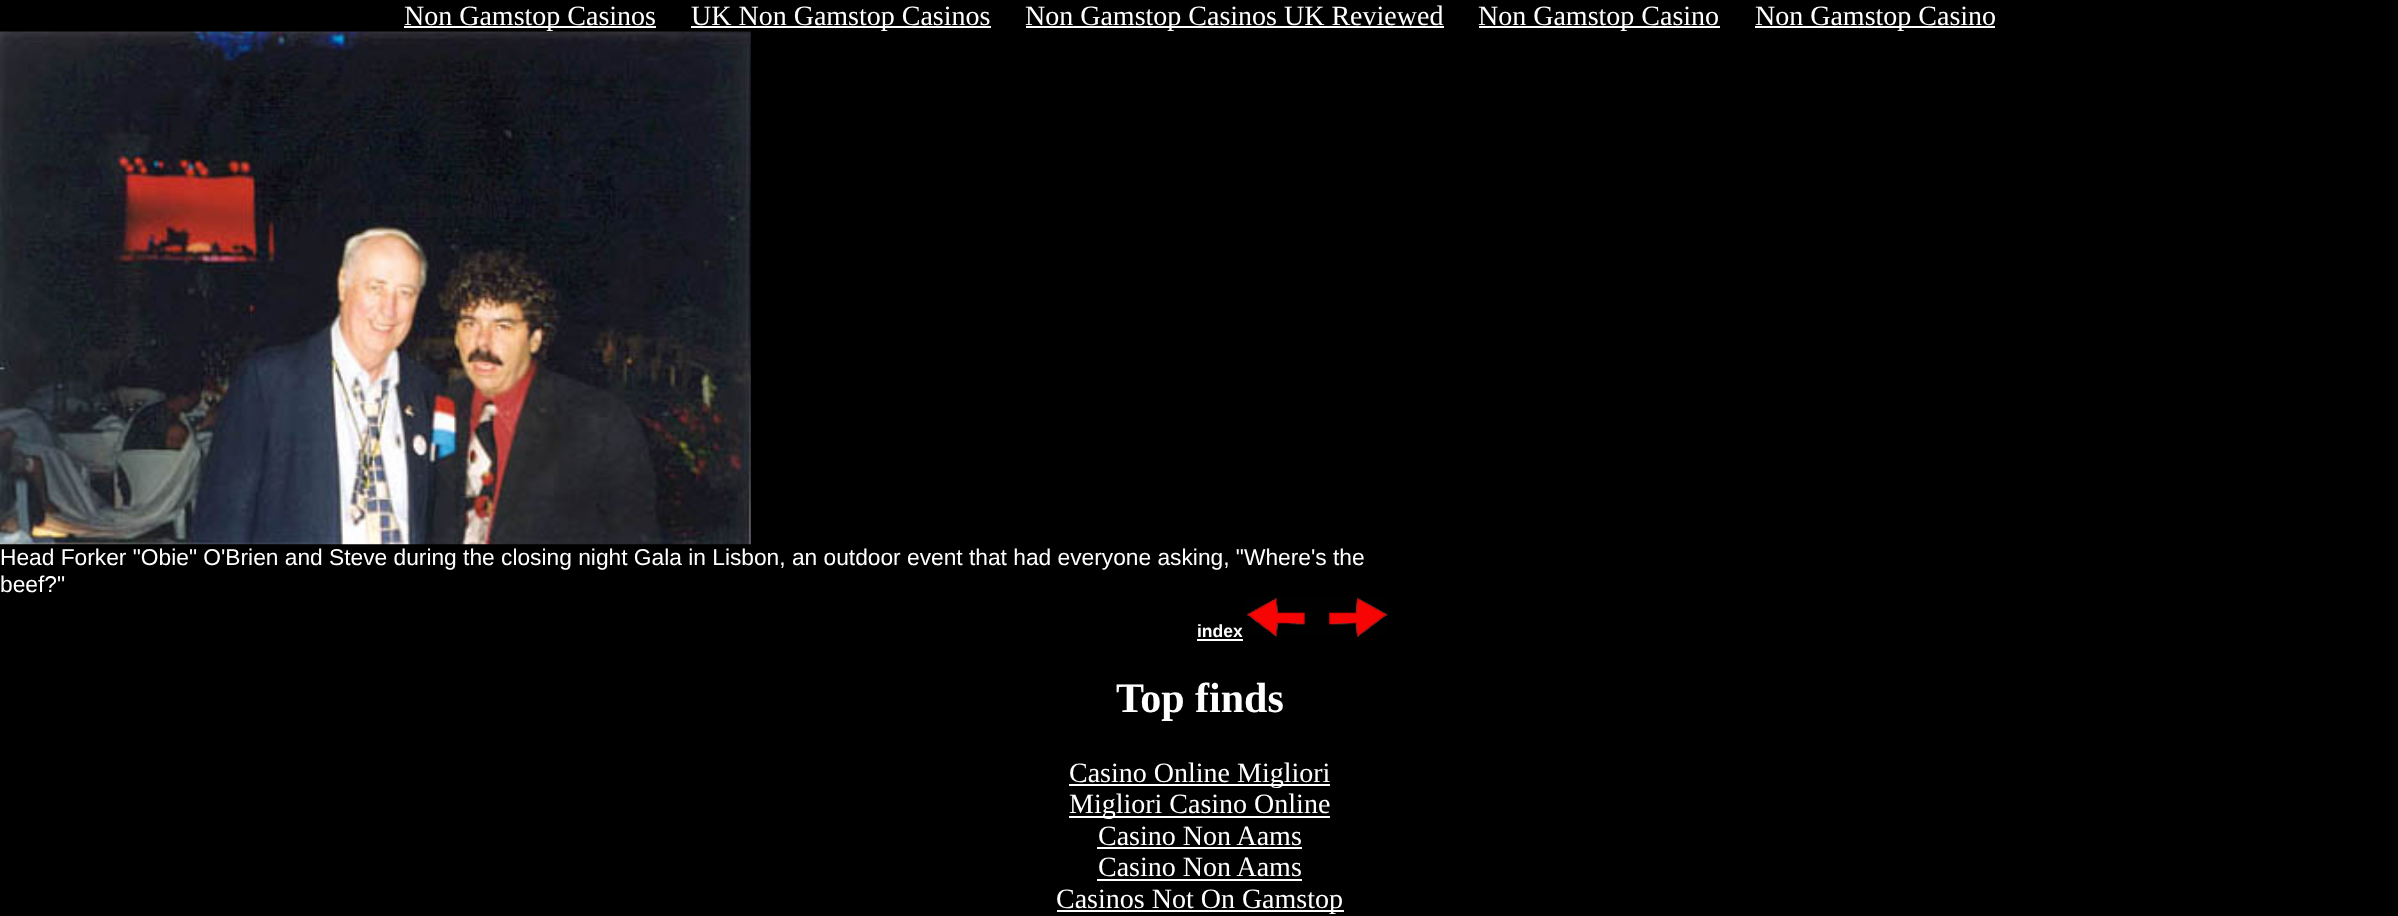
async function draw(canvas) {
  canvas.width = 2398
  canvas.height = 916
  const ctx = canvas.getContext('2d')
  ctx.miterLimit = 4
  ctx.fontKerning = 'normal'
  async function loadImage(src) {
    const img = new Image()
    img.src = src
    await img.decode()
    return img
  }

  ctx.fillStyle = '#000'
  ctx.fillRect(0, 0, 2398, 916)
  ctx.fillStyle = '#fff'
  ctx.fillRect(404, 26, 252, 2)
  ctx.font = '28px Liberation Serif'
  ctx.fillText('Non Gamstop Casinos', 404, 25)
  ctx.fillRect(691, 26, 300, 2)
  ctx.fillText('UK Non Gamstop Casinos', 691, 25)
  ctx.fillRect(1026, 26, 418, 2)
  ctx.fillText('Non Gamstop Casinos UK Reviewed', 1025, 25)
  ctx.fillRect(1479, 26, 241, 2)
  ctx.fillText('Non Gamstop Casino', 1478, 25)
  ctx.fillRect(1755, 26, 240, 2)
  ctx.fillText('Non Gamstop Casino', 1755, 25)
  ctx.drawImage(await loadImage('image0.png'), 0, 31, 751, 514)
  ctx.font = '22.75px Liberation Sans'
  ctx.fillText('Head Forker "Obie" O\'Brien and Steve during the closing night Gala in Lisbon, an outdoor event that had everyone asking, "Where\'s the', 0, 565)
  ctx.fillText('beef?"', 0, 592)
  ctx.font = 'bold 17.5px Liberation Sans'
  ctx.fillText('index', 1197, 637)
  ctx.fillRect(1197, 639, 46, 2)
  ctx.drawImage(await loadImage('image1.png'), 1242, 597, 146, 40)
  ctx.font = 'bold 42px Liberation Serif'
  ctx.fillText('Top finds', 1116, 712)
  ctx.fillRect(1069, 784, 261, 2)
  ctx.font = '28px Liberation Serif'
  ctx.fillText('Casino Online Migliori', 1069, 782)
  ctx.fillRect(1069, 816, 261, 2)
  ctx.fillText('Migliori Casino Online', 1069, 813)
  ctx.fillText('Casino Non Aams', 1098, 845)
  ctx.fillRect(1097, 847, 205, 2)
  ctx.fillText('Casino Non Aams', 1098, 876)
  ctx.fillRect(1097, 879, 205, 2)
  ctx.fillRect(1057, 910, 287, 2)
  ctx.fillText('Casinos Not On Gamstop', 1056, 908)
}

draw(document.querySelector('canvas'))
